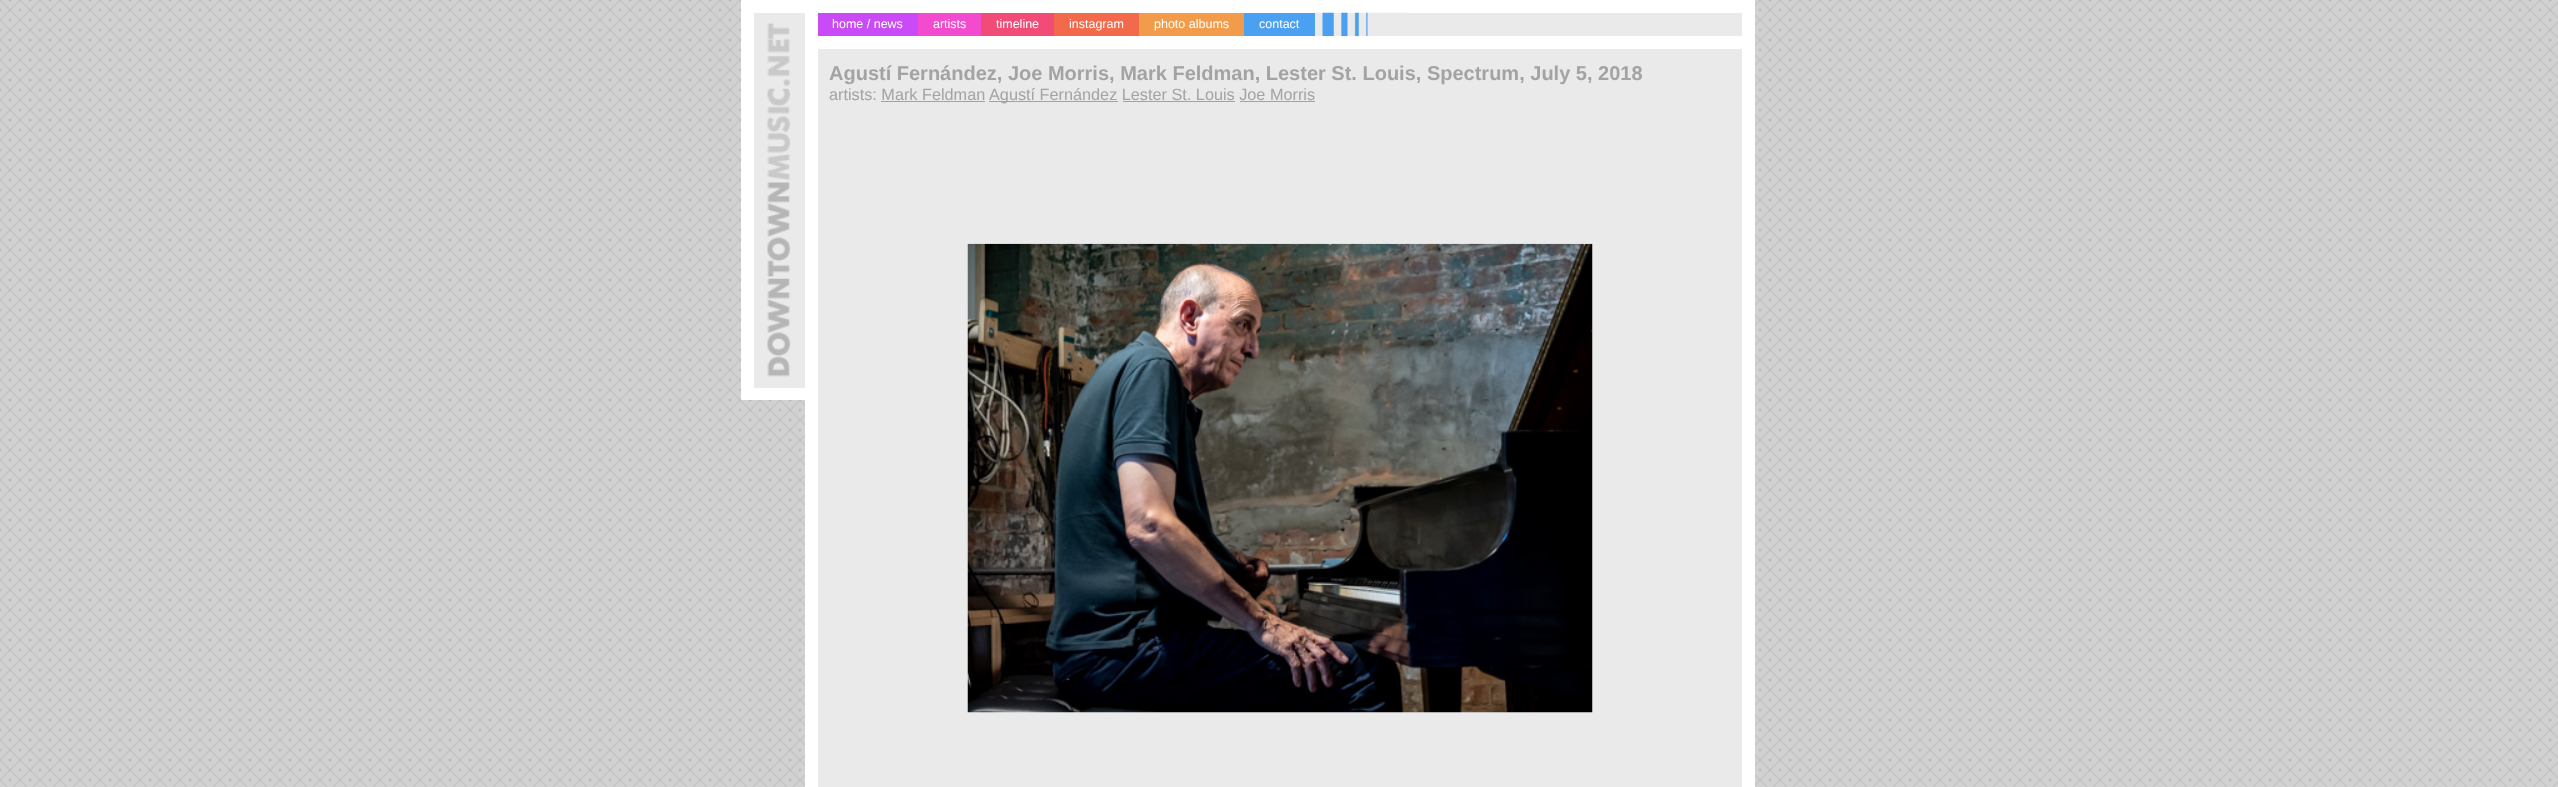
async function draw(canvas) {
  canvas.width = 2558
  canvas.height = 787
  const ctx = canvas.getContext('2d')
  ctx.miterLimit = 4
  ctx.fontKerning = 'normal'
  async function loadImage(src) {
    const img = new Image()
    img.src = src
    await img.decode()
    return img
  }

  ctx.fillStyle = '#fff'
  ctx.fillRect(0, 0, 2558, 787)
  ctx.drawImage(await loadImage('image0.png'), 0, 0, 2558, 787)
  ctx.fillStyle = '#eaeaea'
  ctx.beginPath()
  ctx.rect(811.5, 6.5, 937, 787)
  ctx.fill()
  ctx.strokeStyle = '#fff'
  ctx.lineWidth = 13
  ctx.stroke()
  ctx.fillRect(754, 13, 51, 375)
  ctx.drawImage(await loadImage('image1.png'), 767, 22, 24, 355)
  ctx.fillStyle = '#fff'
  ctx.fillRect(754, 0, 51, 13)
  ctx.fillRect(754, 388, 51, 12)
  ctx.fillRect(741, 0, 13, 400)
  ctx.fillRect(818, 36, 924, 13)
  ctx.fillStyle = '#c94af7'
  ctx.fillRect(818, 13, 100, 23)
  ctx.font = '12.5px Liberation Sans'
  ctx.fillStyle = '#fff'
  ctx.fillText('home / news', 832, 28)
  ctx.fillStyle = '#f24bcd'
  ctx.fillRect(918, 13, 63, 23)
  ctx.fillStyle = '#fff'
  ctx.fillText('artists', 933, 28)
  ctx.fillStyle = '#f24b77'
  ctx.fillRect(981, 13, 73, 23)
  ctx.fillStyle = '#fff'
  ctx.fillText('timeline', 996, 28)
  ctx.fillStyle = '#f26a4b'
  ctx.fillRect(1054, 13, 85, 23)
  ctx.fillStyle = '#fff'
  ctx.fillText('instagram', 1069, 28)
  ctx.fillStyle = '#f29c4b'
  ctx.fillRect(1139, 13, 105, 23)
  ctx.fillStyle = '#fff'
  ctx.fillText('photo albums', 1154, 28)
  ctx.fillStyle = '#4ba0f2'
  ctx.fillRect(1244, 13, 71, 23)
  ctx.fillStyle = '#fff'
  ctx.fillText('contact', 1259, 28)
  ctx.drawImage(await loadImage('image2.png'), 1315, 12, 93, 25)
  ctx.font = 'bold 20px Liberation Sans'
  ctx.fillStyle = '#a4a3a3'
  ctx.fillText('Agustí Fernández, Joe Morris, Mark Feldman, Lester St. Louis, Spectrum, July 5, 2018', 829, 80)
  ctx.font = '16.25px Liberation Sans'
  ctx.fillText('artists: Mark Feldman', 829, 100)
  ctx.fillRect(989, 101, 129, 1)
  ctx.fillText('Agustí Fernández Lester St. Louis Joe Morris', 989, 100)
  ctx.fillRect(881, 101, 104, 1)
  ctx.fillRect(1123, 101, 112, 1)
  ctx.fillRect(1240, 101, 75, 1)
  ctx.drawImage(await loadImage('image3.png'), 967, 243, 626, 470)
}

draw(document.querySelector('canvas'))
